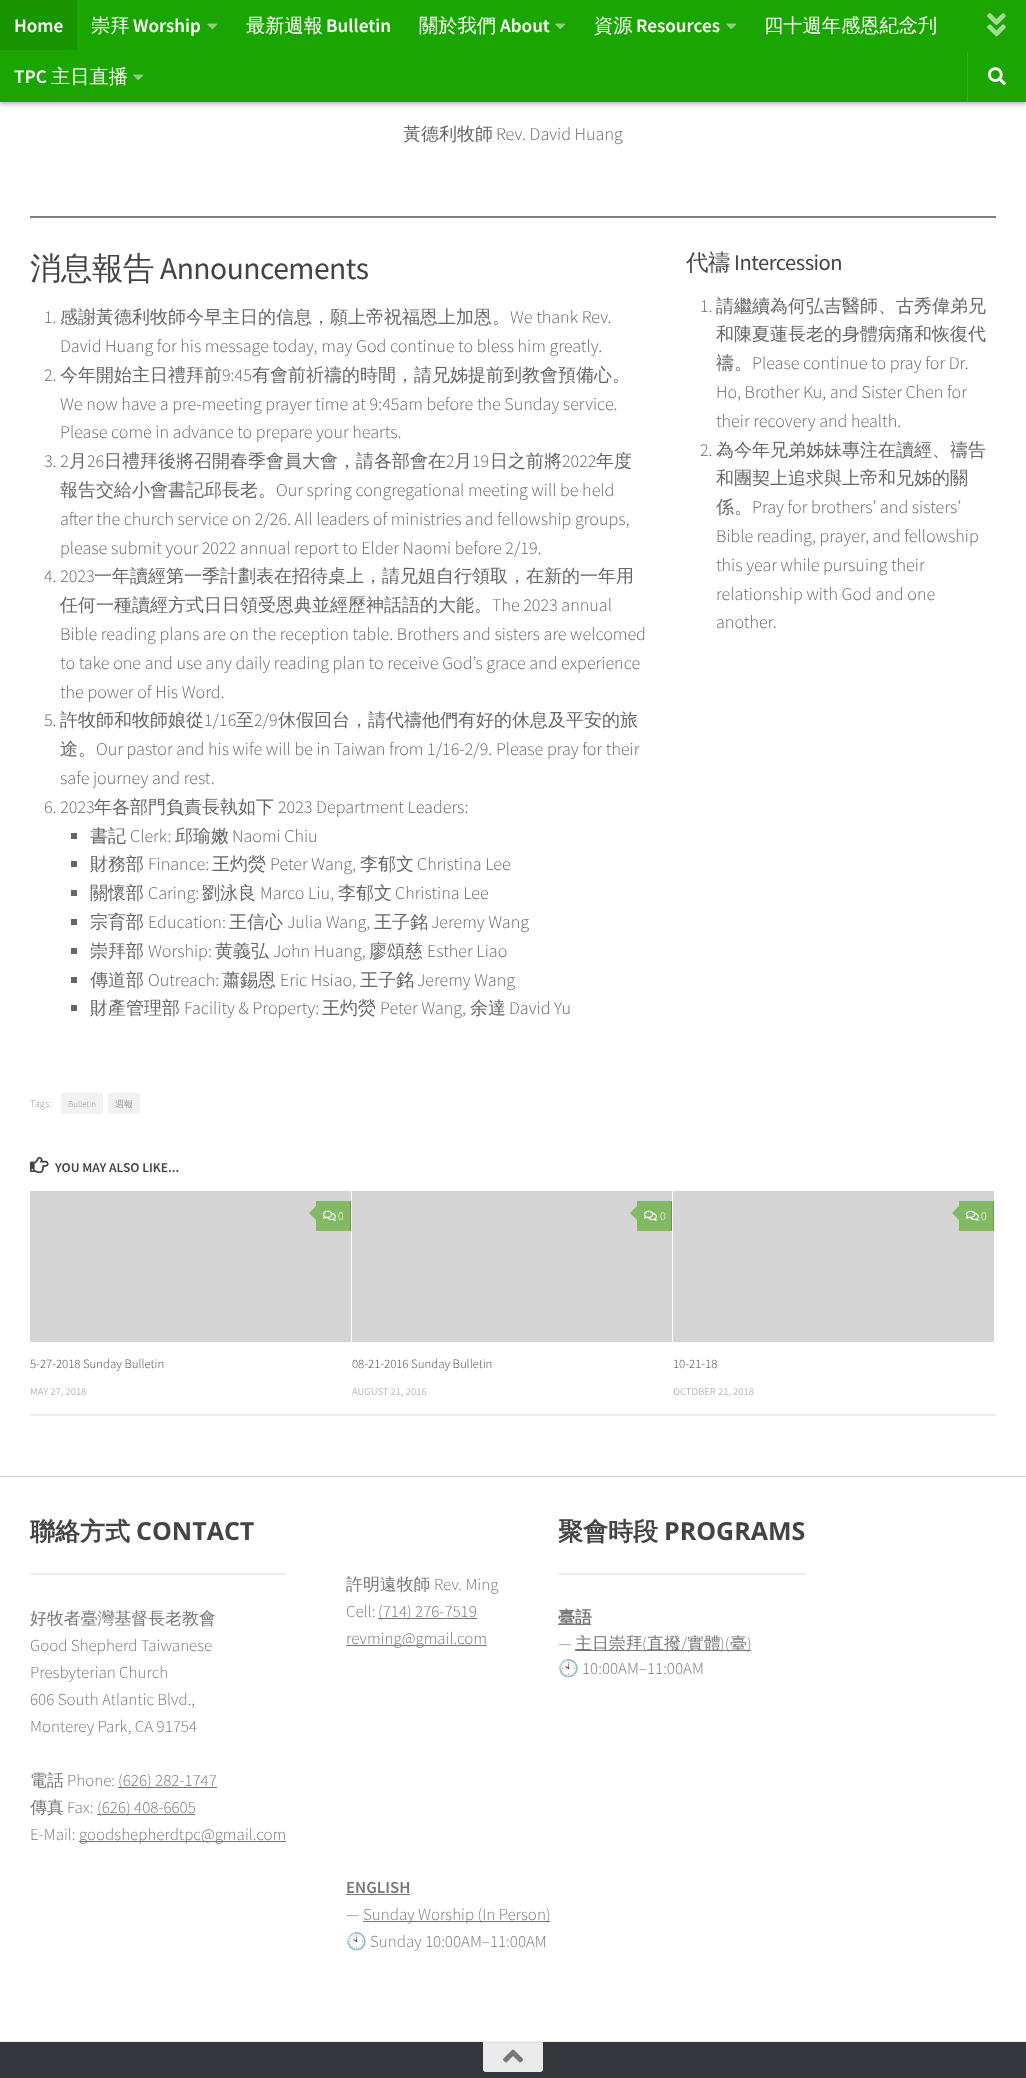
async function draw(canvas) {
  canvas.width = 1026
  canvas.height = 2078
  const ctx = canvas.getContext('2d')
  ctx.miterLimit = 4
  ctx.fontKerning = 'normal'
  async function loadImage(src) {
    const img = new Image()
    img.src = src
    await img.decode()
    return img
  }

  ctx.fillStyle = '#eaeaea'
  ctx.fillRect(0, 0, 1026, 2078)
  ctx.fillStyle = '#0000001a'
  ctx.filter = 'blur(0.5px)'
  ctx.beginPath()
  ctx.rect(0, -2, 1026, 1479)
  ctx.fill()
  ctx.filter = 'none'
  ctx.fillStyle = '#fff'
  ctx.fillRect(0, 102, 1026, 1374)
  ctx.fillStyle = '#0000004d'
  ctx.filter = 'blur(2px)'
  ctx.beginPath()
  ctx.rect(-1, 0, 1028, 104)
  ctx.fill()
  ctx.filter = 'none'
  ctx.fillStyle = '#1ba500'
  ctx.fillRect(0, 0, 1026, 102)
  ctx.fillStyle = '#189500'
  ctx.fillRect(0, 0, 77, 50)
  ctx.font = '600 19.25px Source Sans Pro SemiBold'
  ctx.fillStyle = '#fff'
  ctx.fillText('Home', 14, 32)
  ctx.font = '500 19.25px WenQuanYi Zen Hei'
  ctx.fillText('崇拜', 91, 32)
  ctx.font = '600 19.25px Source Sans Pro SemiBold'
  ctx.fillText('Worship', 133, 32)
  ctx.drawImage(await loadImage('image0.png'), 207, 23, 11, 7)
  ctx.font = '500 19.25px WenQuanYi Zen Hei'
  ctx.fillText('最新週報', 246, 32)
  ctx.font = '600 19.25px Source Sans Pro SemiBold'
  ctx.fillText('Bulletin', 326, 32)
  ctx.font = '500 19.25px WenQuanYi Zen Hei'
  ctx.fillText('關於我們', 419, 32)
  ctx.font = '600 19.25px Source Sans Pro SemiBold'
  ctx.fillText('About', 500, 32)
  ctx.drawImage(await loadImage('image0.png'), 555, 23, 11, 7)
  ctx.font = '500 19.25px WenQuanYi Zen Hei'
  ctx.fillText('資源', 594, 32)
  ctx.font = '600 19.25px Source Sans Pro SemiBold'
  ctx.fillText('Resources', 636, 32)
  ctx.drawImage(await loadImage('image0.png'), 726, 23, 11, 7)
  ctx.font = '500 19.25px WenQuanYi Zen Hei'
  ctx.fillText('四十週年感恩紀念刋', 764, 32)
  ctx.font = '600 19.25px Source Sans Pro SemiBold'
  ctx.fillText('TPC', 14, 83)
  ctx.font = '500 19.25px WenQuanYi Zen Hei'
  ctx.fillText('主日直播', 51, 83)
  ctx.drawImage(await loadImage('image0.png'), 133, 74, 11, 7)
  ctx.drawImage(await loadImage('image1.png'), 987, 13, 19, 24)
  ctx.fillStyle = '#32ae1a'
  ctx.fillRect(967, 52, 1, 50)
  ctx.drawImage(await loadImage('image2.png'), 988, 67, 18, 19)
  ctx.font = '500 18px WenQuanYi Zen Hei'
  ctx.fillStyle = '#666'
  ctx.fillText('黃德利牧師', 403, 140)
  ctx.font = '300 18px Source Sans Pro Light'
  ctx.fillText('Rev. David Huang', 496, 140)
  ctx.fillStyle = '#808080'
  ctx.fillRect(30, 216, 966, 2)
  ctx.letterSpacing = '-0.5px'
  ctx.font = '500 31.5px WenQuanYi Zen Hei'
  ctx.fillStyle = '#444'
  ctx.fillText('消息報告', 30, 279)
  ctx.font = '31.5px Source Sans Pro'
  ctx.fillText('Announcements', 160, 279)
  ctx.letterSpacing = '0px'
  ctx.font = '300 18px Source Sans Pro Light'
  ctx.fillStyle = '#666'
  ctx.fillText('1.', 44, 323)
  ctx.font = '500 18px WenQuanYi Zen Hei'
  ctx.fillText('感謝黃德利牧師今早主日的信息，願上帝祝福恩上加恩。', 60, 323)
  ctx.font = '300 18px Source Sans Pro Light'
  ctx.fillText('We thank Rev.', 510, 323)
  ctx.fillText('David Huang for his message today, may God continue to bless him greatly.', 60, 352)
  ctx.fillText('2.', 44, 381)
  ctx.font = '500 18px WenQuanYi Zen Hei'
  ctx.fillText('今年開始主日禮拜前', 60, 381)
  ctx.font = '300 18px Source Sans Pro Light'
  ctx.fillText('9:45', 222, 381)
  ctx.font = '500 18px WenQuanYi Zen Hei'
  ctx.fillText('有會前祈禱的時間，請兄姊提前到教會預備心。', 252, 381)
  ctx.font = '300 18px Source Sans Pro Light'
  ctx.fillText('We now have a pre-meeting prayer time at 9:45am before the Sunday service.', 60, 410)
  ctx.fillText('Please come in advance to prepare your hearts.', 60, 438)
  ctx.fillText('3. 2', 44, 467)
  ctx.font = '500 18px WenQuanYi Zen Hei'
  ctx.fillText('月', 69, 467)
  ctx.font = '300 18px Source Sans Pro Light'
  ctx.fillText('26', 87, 467)
  ctx.font = '500 18px WenQuanYi Zen Hei'
  ctx.fillText('日禮拜後將召開春季會員大會，請各部會在', 104, 467)
  ctx.font = '300 18px Source Sans Pro Light'
  ctx.fillText('2', 446, 467)
  ctx.font = '500 18px WenQuanYi Zen Hei'
  ctx.fillText('月', 454, 467)
  ctx.font = '300 18px Source Sans Pro Light'
  ctx.fillText('19', 472, 467)
  ctx.font = '500 18px WenQuanYi Zen Hei'
  ctx.fillText('日之前將', 490, 467)
  ctx.font = '300 18px Source Sans Pro Light'
  ctx.fillText('2022', 562, 467)
  ctx.font = '500 18px WenQuanYi Zen Hei'
  ctx.fillText('年度', 596, 467)
  ctx.fillText('報告交給小會書記邱長老。', 60, 496)
  ctx.font = '300 18px Source Sans Pro Light'
  ctx.fillText('Our spring congregational meeting will be held', 276, 496)
  ctx.fillText('after the church service on 2/26. All leaders of ministries and fellowship groups,', 60, 525)
  ctx.fillText('please submit your 2022 annual report to Elder Naomi before 2/19.', 60, 554)
  ctx.fillText('4. 2023', 44, 582)
  ctx.font = '500 18px WenQuanYi Zen Hei'
  ctx.fillText('一年讀經第一季計劃表在招待桌上，請兄姐自行領取，在新的一年用', 94, 582)
  ctx.fillText('任何一種讀經方式日日領受恩典並經歷神話語的大能。', 60, 611)
  ctx.font = '300 18px Source Sans Pro Light'
  ctx.fillText('The 2023 annual', 492, 611)
  ctx.fillText('Bible reading plans are on the reception table. Brothers and sisters are welcomed', 60, 640)
  ctx.fillText('to take one and use any daily reading plan to receive God’s grace and experience', 60, 669)
  ctx.fillText('the power of His Word.', 60, 698)
  ctx.fillText('5.', 44, 726)
  ctx.font = '500 18px WenQuanYi Zen Hei'
  ctx.fillText('許牧師和牧師娘從', 60, 726)
  ctx.font = '300 18px Source Sans Pro Light'
  ctx.fillText('1/16', 204, 726)
  ctx.font = '500 18px WenQuanYi Zen Hei'
  ctx.fillText('至', 236, 726)
  ctx.font = '300 18px Source Sans Pro Light'
  ctx.fillText('2/9', 254, 726)
  ctx.font = '500 18px WenQuanYi Zen Hei'
  ctx.fillText('休假回台，請代禱他們有好的休息及平安的旅', 278, 726)
  ctx.fillText('途。', 60, 755)
  ctx.font = '300 18px Source Sans Pro Light'
  ctx.fillText('Our pastor and his wife will be in Taiwan from 1/16-2/9. Please pray for their', 96, 755)
  ctx.fillText('safe journey and rest.', 60, 784)
  ctx.fillText('6. 2023', 44, 813)
  ctx.font = '500 18px WenQuanYi Zen Hei'
  ctx.fillText('年各部門負責長執如下', 94, 813)
  ctx.font = '300 18px Source Sans Pro Light'
  ctx.fillText('2023 Department Leaders:', 278, 813)
  ctx.fillRect(71, 833, 6, 6)
  ctx.font = '500 18px WenQuanYi Zen Hei'
  ctx.fillText('書記', 90, 842)
  ctx.font = '300 18px Source Sans Pro Light'
  ctx.fillText('Clerk:', 130, 842)
  ctx.font = '500 18px WenQuanYi Zen Hei'
  ctx.fillText('邱瑜嫩', 175, 842)
  ctx.font = '300 18px Source Sans Pro Light'
  ctx.fillText('Naomi Chiu', 232, 842)
  ctx.fillRect(71, 861, 6, 6)
  ctx.font = '500 18px WenQuanYi Zen Hei'
  ctx.fillText('財務部', 90, 870)
  ctx.font = '300 18px Source Sans Pro Light'
  ctx.fillText('Finance:', 148, 870)
  ctx.font = '500 18px WenQuanYi Zen Hei'
  ctx.fillText('王灼熒', 212, 870)
  ctx.font = '300 18px Source Sans Pro Light'
  ctx.fillText('Peter Wang,', 270, 870)
  ctx.font = '500 18px WenQuanYi Zen Hei'
  ctx.fillText('李郁文', 360, 870)
  ctx.font = '300 18px Source Sans Pro Light'
  ctx.fillText('Christina Lee', 417, 870)
  ctx.fillRect(71, 890, 6, 6)
  ctx.font = '500 18px WenQuanYi Zen Hei'
  ctx.fillText('關懷部', 90, 899)
  ctx.font = '300 18px Source Sans Pro Light'
  ctx.fillText('Caring:', 148, 899)
  ctx.font = '500 18px WenQuanYi Zen Hei'
  ctx.fillText('劉泳良', 202, 899)
  ctx.font = '300 18px Source Sans Pro Light'
  ctx.fillText('Marco Liu,', 260, 899)
  ctx.font = '500 18px WenQuanYi Zen Hei'
  ctx.fillText('李郁文', 338, 899)
  ctx.font = '300 18px Source Sans Pro Light'
  ctx.fillText('Christina Lee', 395, 899)
  ctx.fillRect(71, 919, 6, 6)
  ctx.font = '500 18px WenQuanYi Zen Hei'
  ctx.fillText('宗育部', 90, 928)
  ctx.font = '300 18px Source Sans Pro Light'
  ctx.fillText('Education:', 148, 928)
  ctx.font = '500 18px WenQuanYi Zen Hei'
  ctx.fillText('王信心', 229, 928)
  ctx.font = '300 18px Source Sans Pro Light'
  ctx.fillText('Julia Wang,', 287, 928)
  ctx.font = '500 18px WenQuanYi Zen Hei'
  ctx.fillText('王子銘', 374, 928)
  ctx.font = '300 18px Source Sans Pro Light'
  ctx.fillText('Jeremy Wang', 431, 928)
  ctx.fillRect(71, 948, 6, 6)
  ctx.font = '500 18px WenQuanYi Zen Hei'
  ctx.fillText('崇拜部', 90, 957)
  ctx.font = '300 18px Source Sans Pro Light'
  ctx.fillText('Worship:', 148, 957)
  ctx.font = '500 18px WenQuanYi Zen Hei'
  ctx.fillText('黄義弘', 215, 957)
  ctx.font = '300 18px Source Sans Pro Light'
  ctx.fillText('John Huang,', 273, 957)
  ctx.font = '500 18px WenQuanYi Zen Hei'
  ctx.fillText('廖頌慈', 369, 957)
  ctx.font = '300 18px Source Sans Pro Light'
  ctx.fillText('Esther Liao', 427, 957)
  ctx.fillRect(71, 977, 6, 6)
  ctx.font = '500 18px WenQuanYi Zen Hei'
  ctx.fillText('傳道部', 90, 986)
  ctx.font = '300 18px Source Sans Pro Light'
  ctx.fillText('Outreach:', 148, 986)
  ctx.font = '500 18px WenQuanYi Zen Hei'
  ctx.fillText('蕭錫恩', 222, 986)
  ctx.font = '300 18px Source Sans Pro Light'
  ctx.fillText('Eric Hsiao,', 280, 986)
  ctx.font = '500 18px WenQuanYi Zen Hei'
  ctx.fillText('王子銘', 360, 986)
  ctx.font = '300 18px Source Sans Pro Light'
  ctx.fillText('Jeremy Wang', 417, 986)
  ctx.fillRect(71, 1005, 6, 6)
  ctx.font = '500 18px WenQuanYi Zen Hei'
  ctx.fillText('財產管理部', 90, 1014)
  ctx.font = '300 18px Source Sans Pro Light'
  ctx.fillText('Facility & Property:', 184, 1014)
  ctx.font = '500 18px WenQuanYi Zen Hei'
  ctx.fillText('王灼熒', 322, 1014)
  ctx.font = '300 18px Source Sans Pro Light'
  ctx.fillText('Peter Wang,', 380, 1014)
  ctx.font = '500 18px WenQuanYi Zen Hei'
  ctx.fillText('余達', 470, 1014)
  ctx.font = '300 18px Source Sans Pro Light'
  ctx.fillText('David Yu', 509, 1014)
  ctx.letterSpacing = '-0.5px'
  ctx.font = '500 22.5px WenQuanYi Zen Hei'
  ctx.fillStyle = '#444'
  ctx.fillText('代禱', 686, 270)
  ctx.font = '22.5px Source Sans Pro'
  ctx.fillText('Intercession', 734, 270)
  ctx.letterSpacing = '0px'
  ctx.font = '300 18px Source Sans Pro Light'
  ctx.fillStyle = '#666'
  ctx.fillText('1.', 700, 312)
  ctx.font = '500 18px WenQuanYi Zen Hei'
  ctx.fillText('請繼續為何弘吉醫師、古秀偉弟兄', 716, 312)
  ctx.fillText('和陳夏蓮長老的身體病痛和恢復代', 716, 340)
  ctx.fillText('禱。', 716, 369)
  ctx.font = '300 18px Source Sans Pro Light'
  ctx.fillText('Please continue to pray for Dr.', 752, 369)
  ctx.fillText('Ho, Brother Ku, and Sister Chen for', 716, 398)
  ctx.fillText('their recovery and health.', 716, 427)
  ctx.fillText('2.', 700, 456)
  ctx.font = '500 18px WenQuanYi Zen Hei'
  ctx.fillText('為今年兄弟姊妹專注在讀經、禱告', 716, 456)
  ctx.fillText('和團契上追求與上帝和兄姊的關', 716, 484)
  ctx.fillText('係。', 716, 513)
  ctx.font = '300 18px Source Sans Pro Light'
  ctx.fillText('Pray for brothers’ and sisters’', 752, 513)
  ctx.fillText('Bible reading, prayer, and fellowship', 716, 542)
  ctx.fillText('this year while pursuing their', 716, 571)
  ctx.fillText('relationship with God and one', 716, 600)
  ctx.fillText('another.', 716, 628)
  ctx.font = '300 10.5px Source Sans Pro Light'
  ctx.fillStyle = '#999'
  ctx.fillText('Tags:', 30, 1107)
  ctx.fillStyle = '#f2f2f2'
  ctx.beginPath()
  ctx.roundRect(61, 1093, 42, 21, 2)
  ctx.fill()
  ctx.font = '300 9px Source Sans Pro Light'
  ctx.fillStyle = '#999'
  ctx.fillText('Bulletin', 68, 1107)
  ctx.fillStyle = '#f2f2f2'
  ctx.beginPath()
  ctx.roundRect(108, 1093, 32, 21, 2)
  ctx.fill()
  ctx.font = '500 9px WenQuanYi Zen Hei'
  ctx.fillStyle = '#999'
  ctx.fillText('週報', 115, 1107)
  ctx.drawImage(await loadImage('image3.png'), 30, 1156, 19, 18)
  ctx.font = '600 13.5px Source Sans Pro SemiBold'
  ctx.fillStyle = '#444'
  ctx.fillText('YOU MAY ALSO LIKE...', 55, 1172)
  ctx.fillStyle = '#eee'
  ctx.fillRect(30, 1414, 966, 2)
  ctx.fillStyle = '#d5d5d5'
  ctx.fillRect(30, 1191, 321, 151)
  ctx.fillStyle = '#82b965'
  ctx.fillRect(316, 1201, 34, 30)
  ctx.fillStyle = '#689451'
  ctx.fillRect(350, 1201, 1, 30)
  ctx.fillStyle = '#82b965'
  ctx.beginPath()
  ctx.moveTo(318, 1204)
  ctx.lineTo(318, 1222)
  ctx.lineTo(309, 1213)
  ctx.closePath()
  ctx.fill()
  ctx.drawImage(await loadImage('image4.png'), 323, 1210, 13, 11)
  ctx.font = '300 12px Source Sans Pro Light'
  ctx.fillStyle = '#fff'
  ctx.fillText('0', 338, 1220)
  ctx.font = '300 12.75px Source Sans Pro Light'
  ctx.fillStyle = '#444'
  ctx.fillText('5-27-2018 Sunday Bulletin', 30, 1368)
  ctx.font = '10.5px Source Sans Pro'
  ctx.fillStyle = '#bbb'
  ctx.fillText('MAY 27, 2018', 30, 1395)
  ctx.fillStyle = '#d5d5d5'
  ctx.fillRect(352, 1191, 320, 151)
  ctx.fillStyle = '#82b965'
  ctx.fillRect(637, 1201, 34, 30)
  ctx.fillStyle = '#689451'
  ctx.fillRect(671, 1201, 1, 30)
  ctx.fillStyle = '#82b965'
  ctx.beginPath()
  ctx.moveTo(639, 1204)
  ctx.lineTo(639, 1222)
  ctx.lineTo(630, 1213)
  ctx.closePath()
  ctx.fill()
  ctx.drawImage(await loadImage('image4.png'), 644, 1210, 13, 11)
  ctx.font = '300 12px Source Sans Pro Light'
  ctx.fillStyle = '#fff'
  ctx.fillText('0', 660, 1220)
  ctx.font = '300 12.75px Source Sans Pro Light'
  ctx.fillStyle = '#444'
  ctx.fillText('08-21-2016 Sunday Bulletin', 352, 1368)
  ctx.font = '10.5px Source Sans Pro'
  ctx.fillStyle = '#bbb'
  ctx.fillText('AUGUST 21, 2016', 352, 1395)
  ctx.fillStyle = '#d5d5d5'
  ctx.fillRect(673, 1191, 321, 151)
  ctx.fillStyle = '#82b965'
  ctx.fillRect(959, 1201, 34, 30)
  ctx.fillStyle = '#689451'
  ctx.fillRect(993, 1201, 1, 30)
  ctx.fillStyle = '#82b965'
  ctx.beginPath()
  ctx.moveTo(961, 1204)
  ctx.lineTo(961, 1222)
  ctx.lineTo(952, 1213)
  ctx.closePath()
  ctx.fill()
  ctx.drawImage(await loadImage('image4.png'), 966, 1210, 13, 11)
  ctx.font = '300 12px Source Sans Pro Light'
  ctx.fillStyle = '#fff'
  ctx.fillText('0', 981, 1220)
  ctx.font = '300 12.75px Source Sans Pro Light'
  ctx.fillStyle = '#444'
  ctx.fillText('10-21-18', 673, 1368)
  ctx.font = '10.5px Source Sans Pro'
  ctx.fillStyle = '#bbb'
  ctx.fillText('OCTOBER 21, 2018', 673, 1395)
  ctx.fillStyle = '#fff'
  ctx.fillRect(0, 1477, 1026, 564)
  ctx.fillStyle = '#eee'
  ctx.fillRect(0, 2041, 1026, 1)
  ctx.font = 'bold 25px WenQuanYi Zen Hei'
  ctx.fillStyle = '#444'
  ctx.fillText('聯絡方式', 30, 1540)
  ctx.font = 'bold 25px Open Sans'
  ctx.fillText('CONTACT', 136, 1540)
  ctx.fillStyle = '#eee'
  ctx.fillRect(30, 1573, 256, 2)
  ctx.font = '500 16.9px WenQuanYi Zen Hei'
  ctx.fillStyle = '#777'
  ctx.fillText('好牧者臺灣基督長老教會', 30, 1624)
  ctx.font = '300 16.9px Source Sans Pro Light'
  ctx.fillText('Good Shepherd Taiwanese', 30, 1651)
  ctx.fillText('Presbyterian Church', 30, 1678)
  ctx.fillText('606 South Atlantic Blvd.,', 30, 1705)
  ctx.fillText('Monterey Park, CA 91754', 30, 1732)
  ctx.font = '500 16.9px WenQuanYi Zen Hei'
  ctx.fillText('電話', 30, 1786)
  ctx.font = '300 16.9px Source Sans Pro Light'
  ctx.fillText('Phone:', 67, 1786)
  ctx.fillRect(118, 1787, 99, 1)
  ctx.fillText('(626) 282-1747', 118, 1786)
  ctx.font = '500 16.9px WenQuanYi Zen Hei'
  ctx.fillText('傳真', 30, 1813)
  ctx.font = '300 16.9px Source Sans Pro Light'
  ctx.fillText('Fax:', 67, 1813)
  ctx.fillRect(97, 1814, 98, 1)
  ctx.fillText('(626) 408-6605', 97, 1813)
  ctx.fillText('E-Mail:', 30, 1840)
  ctx.fillRect(79, 1841, 207, 1)
  ctx.fillText('goodshepherdtpc@gmail.com', 79, 1840)
  ctx.font = '500 16.9px WenQuanYi Zen Hei'
  ctx.fillText('許明遠牧師', 346, 1590)
  ctx.font = '300 16.9px Source Sans Pro Light'
  ctx.fillText('Rev. Ming', 434, 1590)
  ctx.fillText('Cell:', 346, 1617)
  ctx.fillRect(378, 1618, 99, 1)
  ctx.fillText('(714) 276-7519', 378, 1617)
  ctx.fillRect(346, 1645, 141, 1)
  ctx.fillText('revming@gmail.com', 346, 1644)
  ctx.font = 'bold 25px WenQuanYi Zen Hei'
  ctx.fillStyle = '#444'
  ctx.fillText('聚會時段', 558, 1540)
  ctx.font = 'bold 25px Open Sans'
  ctx.fillText('PROGRAMS', 664, 1540)
  ctx.fillStyle = '#eee'
  ctx.fillRect(558, 1573, 248, 2)
  ctx.fillStyle = '#777'
  ctx.fillRect(558, 1624, 33, 1)
  ctx.font = 'bold 16.9px WenQuanYi Zen Hei'
  ctx.fillText('臺語', 558, 1623)
  ctx.font = '300 16.9px Source Sans Pro Light'
  ctx.fillText('—', 558, 1649)
  ctx.fillRect(575, 1650, 176, 1)
  ctx.font = '500 16.9px WenQuanYi Zen Hei'
  ctx.fillText('主日崇拜', 575, 1649)
  ctx.font = '300 16.9px Source Sans Pro Light'
  ctx.fillText('(', 642, 1649)
  ctx.font = '500 16.9px WenQuanYi Zen Hei'
  ctx.fillText('直撥', 647, 1649)
  ctx.font = '300 16.9px Source Sans Pro Light'
  ctx.fillText('/', 681, 1649)
  ctx.font = '500 16.9px WenQuanYi Zen Hei'
  ctx.fillText('實體', 687, 1649)
  ctx.font = '300 16.9px Source Sans Pro Light'
  ctx.fillText(')(', 720, 1649)
  ctx.font = '500 16.9px WenQuanYi Zen Hei'
  ctx.fillText('臺', 730, 1649)
  ctx.font = '300 16.9px Source Sans Pro Light'
  ctx.fillText(')', 747, 1649)
  ctx.font = '16.9px Noto Color Emoji'
  ctx.fillText('🕙', 558, 1674)
  ctx.font = '300 16.9px Source Sans Pro Light'
  ctx.fillText('10:00AM–11:00AM', 582, 1674)
  ctx.font = '600 16.9px Source Sans Pro SemiBold'
  ctx.fillText('ENGLISH', 346, 1893)
  ctx.fillRect(346, 1894, 64, 1)
  ctx.font = '300 16.9px Source Sans Pro Light'
  ctx.fillText('—', 346, 1920)
  ctx.fillRect(363, 1921, 187, 1)
  ctx.fillText('Sunday Worship (In Person)', 363, 1920)
  ctx.font = '16.9px Noto Color Emoji'
  ctx.fillText('🕙', 346, 1947)
  ctx.font = '300 16.9px Source Sans Pro Light'
  ctx.fillText('Sunday 10:00AM–11:00AM', 370, 1947)
  ctx.fillStyle = '#33363b'
  ctx.fillRect(0, 2042, 1026, 36)
  ctx.fillStyle = '#eaeaea'
  ctx.beginPath()
  ctx.roundRect(483, 2042, 60, 30, [0, 0, 3, 3])
  ctx.fill()
  ctx.fillStyle = '#dedede'
  ctx.fillRect(483, 2042, 60, 1)
  ctx.drawImage(await loadImage('image5.png'), 503, 2049, 20, 14)
}

draw(document.querySelector('canvas'))
